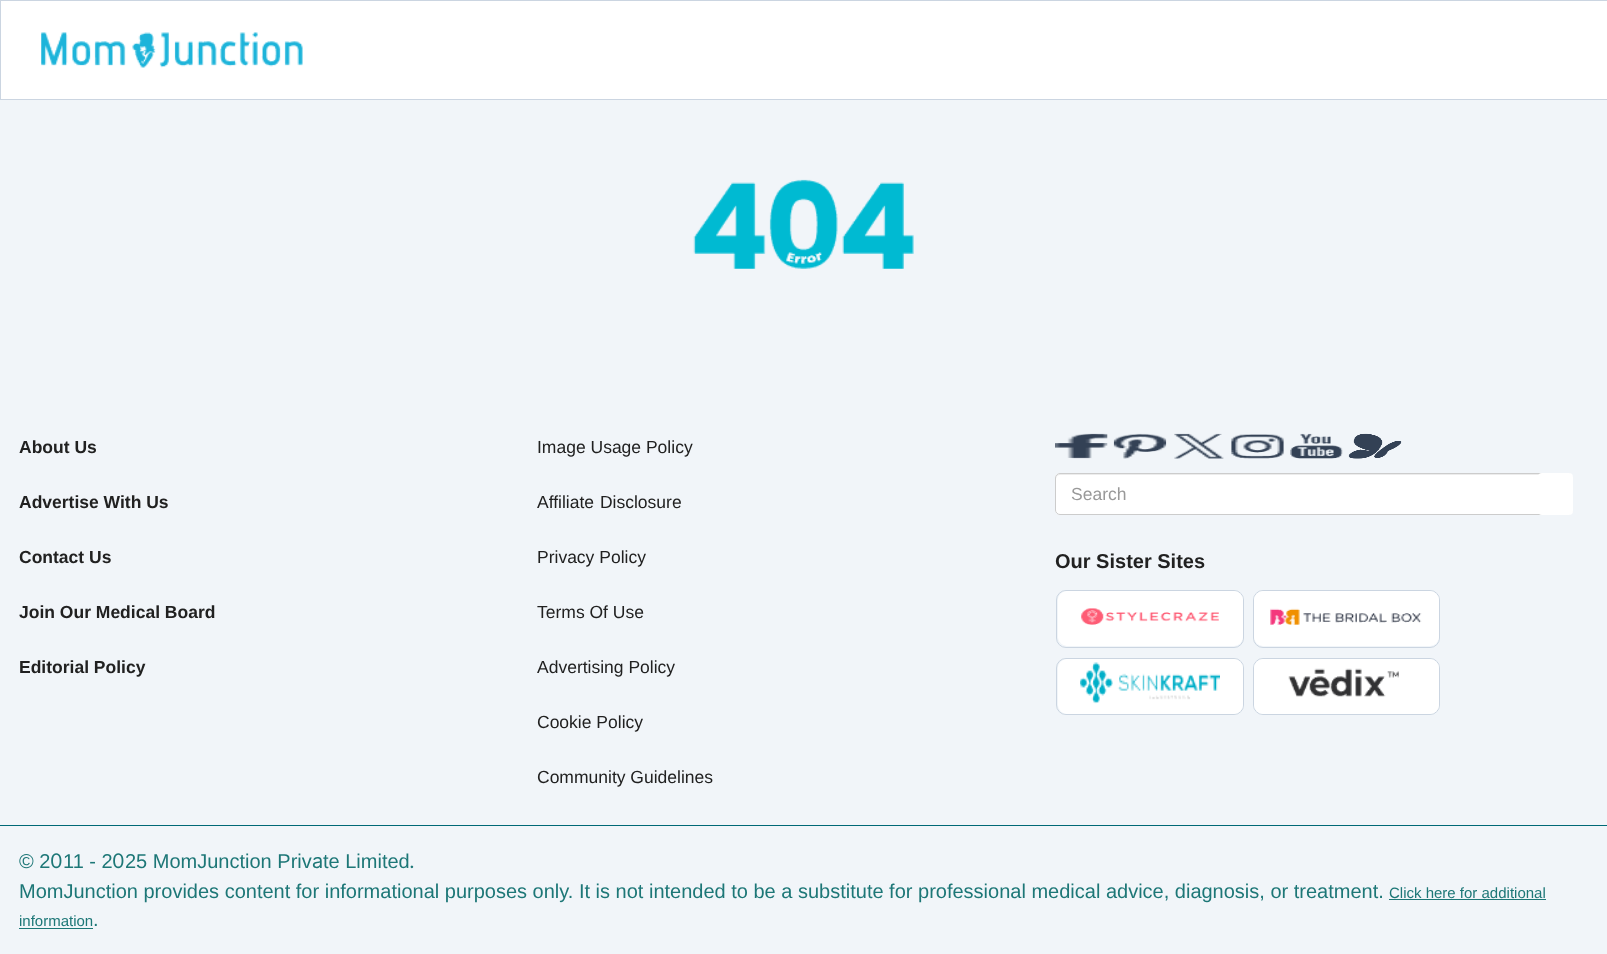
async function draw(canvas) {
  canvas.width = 1607
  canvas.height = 954
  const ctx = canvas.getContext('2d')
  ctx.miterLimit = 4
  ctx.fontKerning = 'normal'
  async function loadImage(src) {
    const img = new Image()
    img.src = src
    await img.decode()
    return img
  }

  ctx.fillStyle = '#fff'
  ctx.fillRect(0, 0, 1607, 954)
  ctx.strokeStyle = '#cbd5e1'
  ctx.strokeRect(0.5, 0.5, 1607, 99)
  ctx.drawImage(await loadImage('image0.png'), 41, 32, 262, 36)
  ctx.fillStyle = '#f1f5f9'
  ctx.fillRect(0, 100, 1607, 854)
  ctx.drawImage(await loadImage('image1.png'), 693, 179, 221, 90)
  ctx.font = 'bold 17.5px Liberation Sans'
  ctx.fillStyle = '#212121'
  ctx.fillText('About Us', 19, 453)
  ctx.fillText('Advertise With Us', 19, 508)
  ctx.fillText('Contact Us', 19, 563)
  ctx.fillText('Join Our Medical Board', 19, 618)
  ctx.fillText('Editorial Policy', 19, 673)
  ctx.font = '17.5px Liberation Sans'
  ctx.fillText('Image Usage Policy', 537, 453)
  ctx.wordSpacing = '1px'
  ctx.fillText('Affiliate Disclosure', 537, 508)
  ctx.wordSpacing = '0px'
  ctx.fillText('Privacy Policy', 537, 563)
  ctx.fillText('Terms Of Use', 537, 618)
  ctx.fillText('Advertising Policy', 537, 673)
  ctx.fillText('Cookie Policy', 537, 728)
  ctx.fillText('Community Guidelines', 537, 783)
  ctx.drawImage(await loadImage('image2.png'), 1055, 433, 53, 26)
  ctx.drawImage(await loadImage('image3.png'), 1113, 433, 54, 26)
  ctx.drawImage(await loadImage('image4.png'), 1174, 433, 50, 26)
  ctx.drawImage(await loadImage('image5.png'), 1231, 434, 53, 25)
  ctx.drawImage(await loadImage('image6.png'), 1290, 433, 53, 26)
  ctx.drawImage(await loadImage('image7.png'), 1348, 433, 54, 26)
  ctx.fillStyle = '#fff'
  ctx.beginPath()
  ctx.roundRect(1055, 473, 518, 42, 5)
  ctx.fill()
  ctx.fillStyle = '#ececec'
  ctx.beginPath()
  ctx.moveTo(1060, 475)
  ctx.lineTo(1568, 475)
  ctx.bezierCurveTo(1570, 475, 1571, 477, 1571, 479)
  ctx.lineTo(1571, 478)
  ctx.bezierCurveTo(1571, 476, 1569, 474, 1567, 474)
  ctx.lineTo(1060, 474)
  ctx.bezierCurveTo(1058, 474, 1056, 476, 1056, 478)
  ctx.lineTo(1056, 479)
  ctx.bezierCurveTo(1056, 477, 1058, 475, 1060, 475)
  ctx.closePath()
  ctx.fill()
  ctx.beginPath()
  ctx.roundRect(1055.5, 473.5, 517, 41, 4.5)
  ctx.strokeStyle = '#ccc'
  ctx.stroke()
  ctx.fillStyle = '#999'
  ctx.fillText('Search', 1071, 500)
  ctx.fillStyle = '#fff'
  ctx.beginPath()
  ctx.roundRect(1538, 473, 35, 42, 4)
  ctx.fill()
  ctx.font = 'bold 20px Liberation Sans'
  ctx.fillStyle = '#212121'
  ctx.fillText('Our Sister Sites', 1055, 568)
  ctx.beginPath()
  ctx.roundRect(1056.5, 590.5, 187, 57, 9.5)
  ctx.strokeStyle = '#cbd5e1'
  ctx.stroke()
  ctx.fillStyle = '#fff'
  ctx.beginPath()
  ctx.roundRect(1058, 591, 185, 55, 9)
  ctx.fill()
  ctx.drawImage(await loadImage('image8.png'), 1081, 608, 138, 17)
  ctx.beginPath()
  ctx.roundRect(1253.5, 590.5, 186, 57, 9.5)
  ctx.stroke()
  ctx.beginPath()
  ctx.roundRect(1254, 591, 185, 55, 9)
  ctx.fill()
  ctx.drawImage(await loadImage('image9.png'), 1270, 608, 152, 17)
  ctx.beginPath()
  ctx.roundRect(1056.5, 658.5, 187, 56, 9.5)
  ctx.stroke()
  ctx.beginPath()
  ctx.roundRect(1058, 659, 185, 55, 9)
  ctx.fill()
  ctx.drawImage(await loadImage('image10.png'), 1080, 662, 140, 42)
  ctx.beginPath()
  ctx.roundRect(1253.5, 658.5, 186, 56, 9.5)
  ctx.stroke()
  ctx.beginPath()
  ctx.roundRect(1254, 659, 185, 55, 9)
  ctx.fill()
  ctx.drawImage(await loadImage('image11.png'), 1288, 668, 111, 29)
  ctx.fillStyle = '#006976'
  ctx.fillRect(0, 825, 1607, 1)
  ctx.font = '20px Liberation Sans'
  ctx.fillStyle = '#1d7777'
  ctx.fillText('© 2', 19, 868)
  ctx.font = '20px Inter'
  ctx.fillText('0', 50, 868)
  ctx.font = '20px Liberation Sans'
  ctx.fillText('11 - 2', 63, 868)
  ctx.font = '20px Inter'
  ctx.fillText('0', 112, 868)
  ctx.font = '20px Liberation Sans'
  ctx.fillText('25 MomJunction Priv', 125, 868)
  ctx.font = '20px Inter'
  ctx.fillText('a', 312, 868)
  ctx.font = '20px Liberation Sans'
  ctx.fillText('te Limited', 323, 868)
  ctx.font = '20px Inter'
  ctx.fillText('.', 409, 868)
  ctx.font = '20px Liberation Sans'
  ctx.fillText('MomJunction provides content for informational purposes only. It is not intended to be a substitute for professional medical advice, diagnosis, or treatment.', 19, 898)
  ctx.font = '15px Liberation Sans'
  ctx.fillText('Click here for additional', 1389, 898)
  ctx.fillRect(1389, 899, 157, 1)
  ctx.fillText('information', 19, 926)
  ctx.fillRect(19, 928, 74, 1)
  ctx.font = '20px Liberation Sans'
  ctx.fillText('.', 93, 926)
}

draw(document.querySelector('canvas'))
